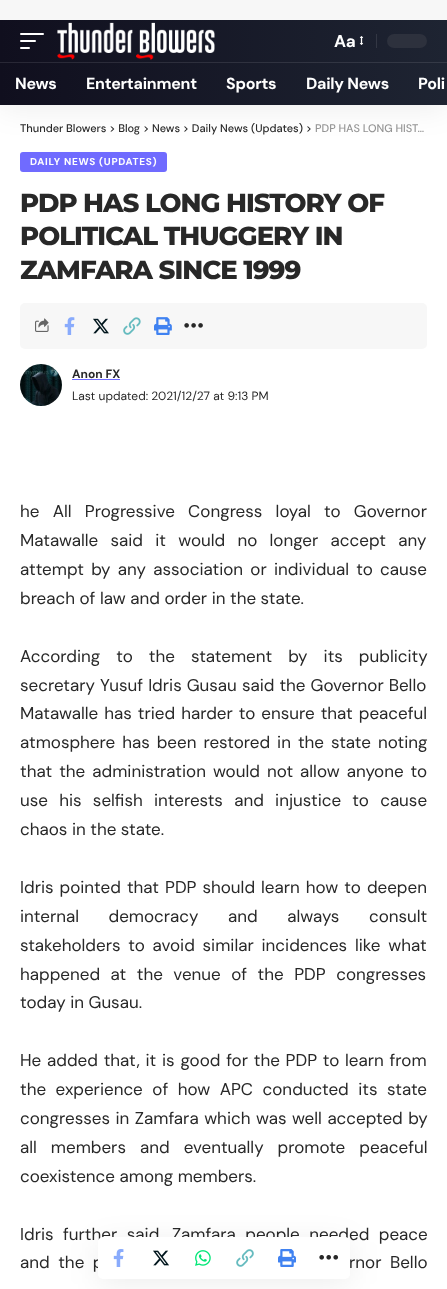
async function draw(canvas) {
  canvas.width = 447
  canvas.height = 1289
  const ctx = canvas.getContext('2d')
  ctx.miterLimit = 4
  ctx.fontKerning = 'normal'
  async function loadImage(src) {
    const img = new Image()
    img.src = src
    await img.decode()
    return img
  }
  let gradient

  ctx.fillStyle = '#fff'
  ctx.fillRect(0, 0, 447, 1289)
  ctx.fillStyle = '#f7f7f7'
  ctx.fillRect(0, 0, 447, 20)
  ctx.fillStyle = '#706bff'
  ctx.beginPath()
  ctx.roundRect(20, 152, 147, 20, 3)
  ctx.fill()
  ctx.save()
  ctx.beginPath()
  ctx.rect(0, 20, 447, 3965)
  ctx.clip()
  ctx.fillStyle = '#00000012'
  ctx.filter = 'blur(15px)'
  ctx.beginPath()
  ctx.rect(0, 24, 447, 85)
  ctx.fill()
  ctx.filter = 'none'
  ctx.restore()
  gradient = ctx.createLinearGradient(0, 63, 447, 62)
  gradient.addColorStop(0, '#100f1e')
  gradient.addColorStop(1, '#1e2432')
  ctx.fillStyle = gradient
  ctx.fillRect(0, 20, 447, 85)
  gradient = ctx.createLinearGradient(0, 63, 447, 62)
  gradient.addColorStop(0, '#282735')
  gradient.addColorStop(1, '#353a47')
  ctx.fillStyle = gradient
  ctx.fillRect(0, 62, 447, 1)
  ctx.fillStyle = '#fff'
  ctx.beginPath()
  ctx.roundRect(20, 33, 24, 2, 1)
  ctx.fill()
  ctx.beginPath()
  ctx.roundRect(20, 40, 16, 2, 1)
  ctx.fill()
  ctx.beginPath()
  ctx.roundRect(20, 47, 10, 2, 1)
  ctx.fill()
  ctx.drawImage(await loadImage('image0.png'), 57, 22, 158, 38)
  ctx.font = 'bold 17px DM Sans'
  ctx.fillText('Aa', 334, 47)
  ctx.drawImage(await loadImage('image1.png'), 359, 36, 5, 9)
  ctx.fillStyle = '#333744'
  ctx.fillRect(376, 34, 1, 14)
  ctx.fillStyle = '#2d313d'
  ctx.beginPath()
  ctx.roundRect(387, 34, 40, 14, 7)
  ctx.fill()
  ctx.letterSpacing = '-0.25px'
  ctx.font = 'bold 16px DM Sans'
  ctx.fillStyle = '#fff'
  ctx.fillText('News', 15, 89)
  ctx.fillText('Entertainment', 86, 89)
  ctx.fillText('Sports', 226, 89)
  ctx.fillText('Daily News', 306, 89)
  ctx.fillText('Poli', 418, 89)
  ctx.letterSpacing = '0px'
  ctx.font = '500 11px DM Sans'
  ctx.fillStyle = '#282828'
  ctx.fillText('Thunder Blowers > Blog > News > Daily News (Updates) >', 20, 132)
  ctx.fillStyle = '#949494'
  ctx.fillText('PDP HAS LONG HIST…', 315, 132)
  ctx.letterSpacing = '0.7px'
  ctx.font = 'bold 10px DM Sans'
  ctx.fillStyle = '#fff'
  ctx.fillText('DAILY NEWS (UPDATES)', 30, 165)
  ctx.letterSpacing = '-1px'
  ctx.font = '800 26px Montserrat'
  ctx.fillStyle = '#282828'
  ctx.fillText('PDP HAS LONG HISTORY OF', 20, 212)
  ctx.fillText('POLITICAL THUGGERY IN', 20, 245)
  ctx.fillText('ZAMFARA SINCE 1999', 20, 279)
  ctx.fillStyle = '#f7f7f7'
  ctx.beginPath()
  ctx.roundRect(20, 303, 407, 46, 5)
  ctx.fill()
  ctx.drawImage(await loadImage('image2.png'), 35, 318, 14, 14)
  ctx.drawImage(await loadImage('image3.png'), 64, 317, 11, 18)
  ctx.drawImage(await loadImage('image4.png'), 93, 318, 16, 16)
  ctx.drawImage(await loadImage('image5.png'), 123, 317, 18, 18)
  ctx.drawImage(await loadImage('image6.png'), 154, 317, 18, 18)
  ctx.drawImage(await loadImage('image7.png'), 184, 323, 19, 5)
  ctx.drawImage(await loadImage('image8.png'), 20, 364, 42, 42)
  ctx.letterSpacing = '0px'
  ctx.font = 'bold 12px DM Sans'
  ctx.fillStyle = '#282828'
  ctx.fillText('Anon FX', 72, 378)
  ctx.fillStyle = '#706bff'
  ctx.fillRect(72, 379, 48, 1)
  ctx.font = '12px DM Sans'
  ctx.fillStyle = '#282828'
  ctx.fillText('Last updated: 2021/12/27 at 9:13 PM', 72, 400)
  ctx.wordSpacing = '8.75px'
  ctx.font = '17px DM Sans'
  ctx.fillText('he All Progressive Congress loyal to Governor', 20, 517)
  ctx.wordSpacing = '7.75px'
  ctx.fillText('Matawalle said it would no longer accept any', 20, 546)
  ctx.wordSpacing = '2.75px'
  ctx.fillText('attempt by any association or individual to cause', 20, 575)
  ctx.wordSpacing = '0px'
  ctx.fillText('breach of law and order in the state.', 20, 604)
  ctx.wordSpacing = '11.5px'
  ctx.fillText('According to the statement by its publicity', 20, 662)
  ctx.wordSpacing = '0.5px'
  ctx.fillText('secretary Yusuf Idris Gusau said the Governor Bello', 20, 691)
  ctx.wordSpacing = '1.5px'
  ctx.fillText('Matawalle has tried harder to ensure that peaceful', 20, 719)
  ctx.wordSpacing = '2.5px'
  ctx.fillText('atmosphere has been restored in the state noting', 20, 748)
  ctx.fillText('that the administration would not allow anyone to', 20, 777)
  ctx.wordSpacing = '6.75px'
  ctx.fillText('use his selfish interests and injustice to cause', 20, 806)
  ctx.wordSpacing = '0px'
  ctx.fillText('chaos in the state.', 20, 835)
  ctx.wordSpacing = '1.5px'
  ctx.fillText('Idris pointed that PDP should learn how to deepen', 20, 893)
  ctx.wordSpacing = '25px'
  ctx.fillText('internal democracy and always consult', 20, 922)
  ctx.wordSpacing = '3.25px'
  ctx.fillText('stakeholders to avoid similar incidences like what', 20, 951)
  ctx.wordSpacing = '6px'
  ctx.fillText('happened at the venue of the PDP congresses', 20, 980)
  ctx.wordSpacing = '0px'
  ctx.fillText('today in Gusau.', 20, 1008)
  ctx.wordSpacing = '1.25px'
  ctx.fillText('He added that, it is good for the PDP to learn from', 20, 1066)
  ctx.wordSpacing = '5px'
  ctx.fillText('the experience of how APC conducted its state', 20, 1095)
  ctx.wordSpacing = '1px'
  ctx.fillText('congresses in Zamfara which was well accepted by', 20, 1124)
  ctx.wordSpacing = '9.5px'
  ctx.fillText('all members and eventually promote peaceful', 20, 1153)
  ctx.wordSpacing = '0px'
  ctx.fillText('coexistence among members.', 20, 1182)
  ctx.wordSpacing = '5px'
  ctx.fillText('Idris further said, Zamfara people needed peace', 20, 1240)
  ctx.wordSpacing = '4px'
  ctx.fillText('and the p', 20, 1268)
  ctx.fillText('rnor Bello', 349, 1268)
  ctx.fillStyle = '#00000012'
  ctx.filter = 'blur(15px)'
  ctx.beginPath()
  ctx.roundRect(98, 1242, 252, 42, 5)
  ctx.fill()
  ctx.filter = 'none'
  ctx.fillStyle = '#fff'
  ctx.beginPath()
  ctx.roundRect(98, 1237, 252, 42, 5)
  ctx.fill()
  ctx.drawImage(await loadImage('image9.png'), 113, 1249, 11, 18)
  ctx.drawImage(await loadImage('image10.png'), 153, 1250, 16, 16)
  ctx.drawImage(await loadImage('image11.png'), 195, 1250, 16, 16)
  ctx.drawImage(await loadImage('image12.png'), 236, 1249, 18, 18)
  ctx.drawImage(await loadImage('image13.png'), 278, 1249, 18, 18)
  ctx.drawImage(await loadImage('image14.png'), 319, 1255, 20, 5)
}

draw(document.querySelector('canvas'))
